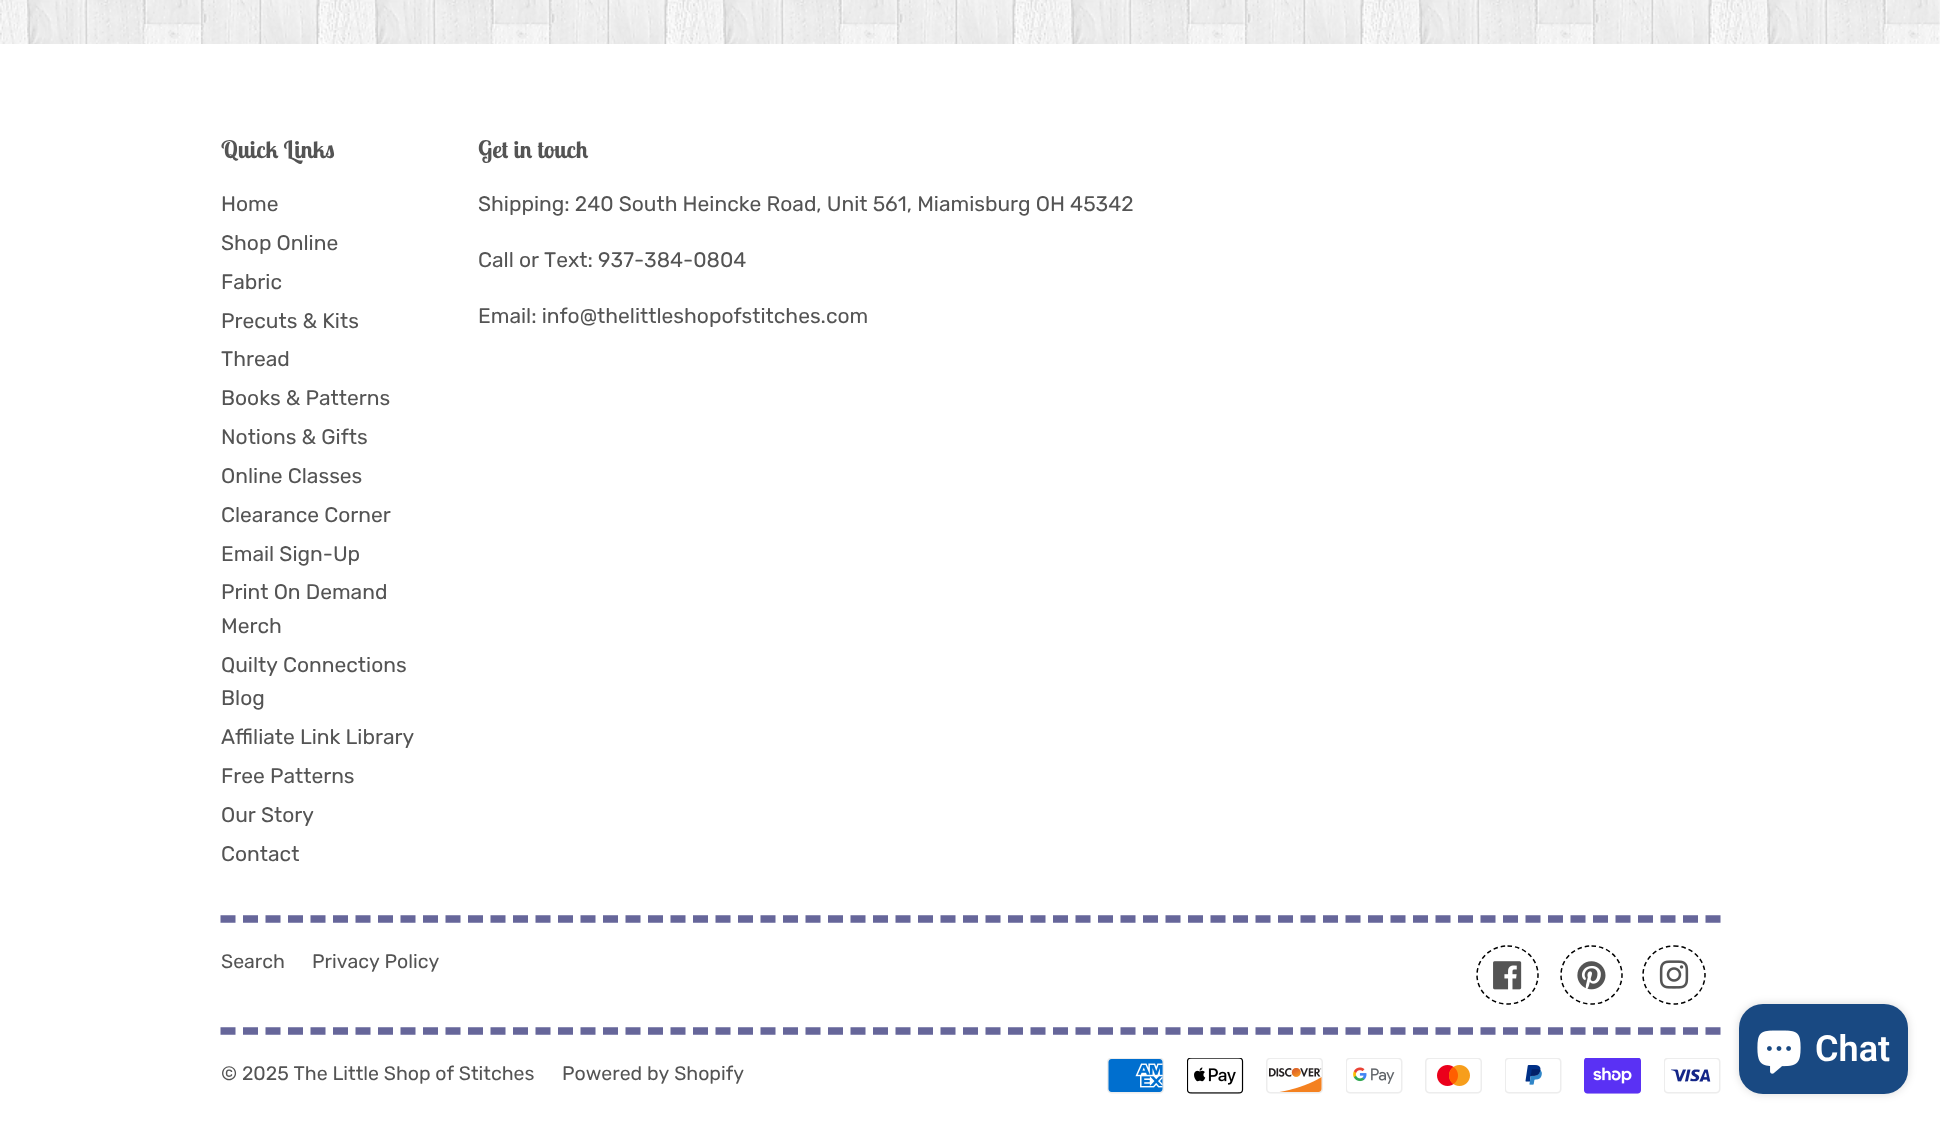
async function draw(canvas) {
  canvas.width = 1940
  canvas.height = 1125
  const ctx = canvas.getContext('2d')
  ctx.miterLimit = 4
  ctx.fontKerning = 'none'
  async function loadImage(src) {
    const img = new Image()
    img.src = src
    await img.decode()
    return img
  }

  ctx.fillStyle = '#fff'
  ctx.fillRect(0, 0, 1940, 1125)
  ctx.drawImage(await loadImage('image0.png'), 0, 0, 1940, 44)
  ctx.font = 'bold 24px Lobster Two'
  ctx.fillStyle = '#545454'
  ctx.fillText('Quick Links', 221, 158)
  ctx.font = '21px Rubik'
  ctx.fillText('Home', 221, 211)
  ctx.fillText('Shop Online', 221, 250)
  ctx.fillText('Fabric', 221, 289)
  ctx.fillText('Precuts & Kits', 221, 328)
  ctx.fillText('Thread', 221, 366)
  ctx.fillText('Books & Patterns', 221, 405)
  ctx.fillText('Notions & Gifts', 221, 444)
  ctx.fillText('Online Classes', 221, 483)
  ctx.fillText('Clearance Corner', 221, 522)
  ctx.fillText('Email Sign-Up', 221, 561)
  ctx.fillText('Print On Demand', 221, 599)
  ctx.fillText('Merch', 221, 633)
  ctx.fillText('Quilty Connections', 221, 672)
  ctx.fillText('Blog', 221, 705)
  ctx.fillText('Affiliate Link Library', 221, 744)
  ctx.fillText('Free Patterns', 221, 783)
  ctx.fillText('Our Story', 221, 822)
  ctx.fillText('Contact', 221, 861)
  ctx.font = 'bold 24px Lobster Two'
  ctx.fillText('Get in touch', 478, 158)
  ctx.font = '21px Rubik'
  ctx.fillText('Shipping: 240 South Heincke Road, Unit 561, Miamisburg OH 45342', 478, 211)
  ctx.fillText('Call or Text: 937-384-0804', 478, 267)
  ctx.fillText('Email: info@thelittleshopofstitches.com', 478, 323)
  ctx.beginPath()
  ctx.moveTo(220.5, 919)
  ctx.lineTo(1720.5, 919)
  ctx.strokeStyle = '#66669a'
  ctx.lineWidth = 7.5
  ctx.setLineDash([15, 7.5])
  ctx.stroke()
  ctx.font = '19.5px Rubik'
  ctx.fillText('Search', 221, 968)
  ctx.fillText('Privacy Policy', 312, 968)
  ctx.beginPath()
  ctx.moveTo(1507.5, 946)
  ctx.bezierCurveTo(1524.5, 946, 1538, 959, 1538, 975)
  ctx.bezierCurveTo(1538, 991, 1524.5, 1004, 1507.5, 1004)
  ctx.bezierCurveTo(1490.5, 1004, 1477, 991, 1477, 975)
  ctx.bezierCurveTo(1477, 959, 1490.5, 946, 1507.5, 946)
  ctx.closePath()
  ctx.strokeStyle = '#000'
  ctx.lineWidth = 1.5
  ctx.setLineDash([4.5, 3])
  ctx.stroke()
  ctx.drawImage(await loadImage('image1.png'), 1493, 961, 29, 29)
  ctx.beginPath()
  ctx.moveTo(1591.5, 946)
  ctx.bezierCurveTo(1608.5, 946, 1622, 959, 1622, 975)
  ctx.bezierCurveTo(1622, 991, 1608.5, 1004, 1591.5, 1004)
  ctx.bezierCurveTo(1574.5, 1004, 1561, 991, 1561, 975)
  ctx.bezierCurveTo(1561, 959, 1574.5, 946, 1591.5, 946)
  ctx.closePath()
  ctx.stroke()
  ctx.drawImage(await loadImage('image2.png'), 1577, 961, 29, 29)
  ctx.beginPath()
  ctx.moveTo(1674, 946)
  ctx.bezierCurveTo(1691, 946, 1705, 959, 1705, 975)
  ctx.bezierCurveTo(1705, 991, 1691, 1004, 1674, 1004)
  ctx.bezierCurveTo(1657, 1004, 1643, 991, 1643, 975)
  ctx.bezierCurveTo(1643, 959, 1657, 946, 1674, 946)
  ctx.closePath()
  ctx.stroke()
  ctx.drawImage(await loadImage('image3.png'), 1659, 960, 30, 29)
  ctx.beginPath()
  ctx.moveTo(220.5, 1031)
  ctx.lineTo(1720.5, 1031)
  ctx.strokeStyle = '#66669a'
  ctx.lineWidth = 7.5
  ctx.setLineDash([15, 7.5])
  ctx.stroke()
  ctx.fillText('© 2025 The Little Shop of Stitches', 221, 1080)
  ctx.fillText('Powered by Shopify', 562, 1080)
  ctx.drawImage(await loadImage('image4.png'), 1107, 1058, 57, 36)
  ctx.drawImage(await loadImage('image5.png'), 1187, 1058, 57, 36)
  ctx.drawImage(await loadImage('image6.png'), 1266, 1058, 57, 36)
  ctx.drawImage(await loadImage('image7.png'), 1346, 1058, 57, 36)
  ctx.drawImage(await loadImage('image8.png'), 1425, 1058, 57, 36)
  ctx.drawImage(await loadImage('image9.png'), 1505, 1058, 57, 36)
  ctx.drawImage(await loadImage('image10.png'), 1584, 1058, 57, 36)
  ctx.drawImage(await loadImage('image11.png'), 1664, 1058, 57, 36)
  ctx.fillStyle = '#00000026'
  ctx.filter = 'blur(4px)'
  ctx.beginPath()
  ctx.roundRect(1739, 1004, 169, 90, 24)
  ctx.fill()
  ctx.filter = 'none'
  ctx.fillStyle = '#194982'
  ctx.beginPath()
  ctx.roundRect(1739, 1004, 169, 90, 24)
  ctx.fill()
  ctx.drawImage(await loadImage('image12.png'), 1757, 1030, 44, 44)
  ctx.font = '600 36px Roboto'
  ctx.fillStyle = '#fff'
  ctx.fillText('Chat', 1815, 1061)
}

draw(document.querySelector('canvas'))
